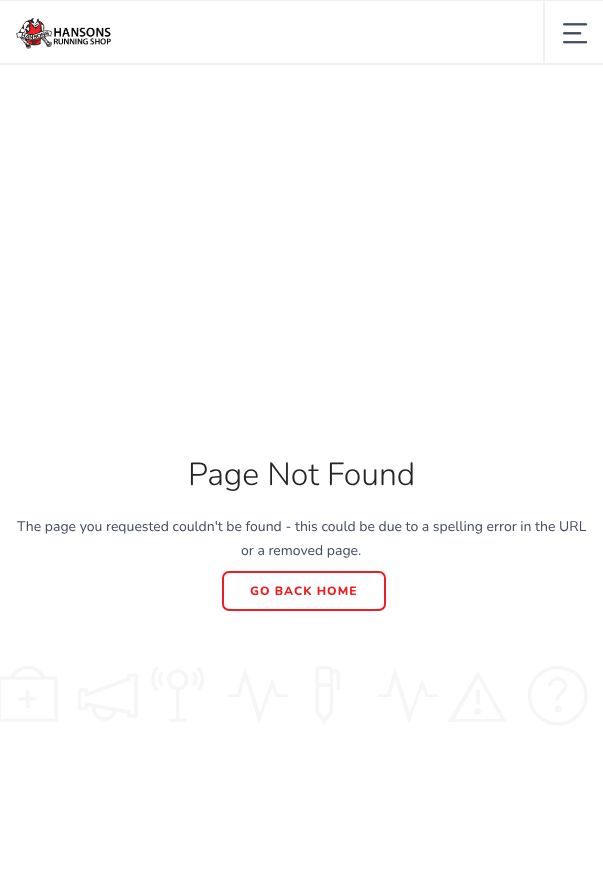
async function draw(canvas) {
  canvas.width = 603
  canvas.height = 872
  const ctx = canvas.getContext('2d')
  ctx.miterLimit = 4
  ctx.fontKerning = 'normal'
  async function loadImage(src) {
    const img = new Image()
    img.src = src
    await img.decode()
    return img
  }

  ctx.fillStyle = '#fff'
  ctx.fillRect(0, 0, 603, 872)
  ctx.fillStyle = '#eef1f2'
  ctx.fillRect(0, 0, 603, 1)
  ctx.fillRect(0, 63, 603, 2)
  ctx.drawImage(await loadImage('image0.png'), 16, 18, 95, 31)
  ctx.fillRect(543, 1, 2, 62)
  ctx.drawImage(await loadImage('image1.png'), 563, 23, 25, 21)
  ctx.font = '300 32px Nunito'
  ctx.fillStyle = '#252525'
  ctx.fillText('Page Not Found', 188, 485)
  ctx.font = '14px Nunito'
  ctx.fillStyle = '#434c5e'
  ctx.fillText('The page you requested couldn\'t be found - this could be due to a spelling error in the URL', 17, 531)
  ctx.fillText('or a removed page.', 241, 555)
  ctx.beginPath()
  ctx.roundRect(223, 572, 162, 38, 6)
  ctx.strokeStyle = '#ec1d23'
  ctx.lineWidth = 2
  ctx.stroke()
  ctx.letterSpacing = '1px'
  ctx.font = '800 12px Nunito'
  ctx.fillStyle = '#ec1d23'
  ctx.fillText('GO BACK HOME', 250, 595)
  ctx.drawImage(await loadImage('image2.png'), 0, 666, 58, 56)
  ctx.drawImage(await loadImage('image3.png'), 78, 673, 60, 48)
  ctx.drawImage(await loadImage('image4.png'), 151, 667, 53, 55)
  ctx.fillStyle = '#f6f6f7'
  ctx.beginPath()
  ctx.moveTo(278, 694)
  ctx.lineTo(272, 678)
  ctx.lineTo(260, 713)
  ctx.lineTo(245, 667)
  ctx.lineTo(237, 694)
  ctx.lineTo(228, 694)
  ctx.lineTo(228, 697)
  ctx.lineTo(240, 697)
  ctx.lineTo(245, 679)
  ctx.lineTo(259, 724)
  ctx.lineTo(272, 688)
  ctx.lineTo(276, 697)
  ctx.lineTo(288, 697)
  ctx.lineTo(288, 694)
  ctx.closePath()
  ctx.fill()
  ctx.drawImage(await loadImage('image5.png'), 315, 666, 25, 59)
  ctx.beginPath()
  ctx.moveTo(428, 694)
  ctx.lineTo(422, 678)
  ctx.lineTo(410, 713)
  ctx.lineTo(395, 667)
  ctx.lineTo(387, 694)
  ctx.lineTo(378, 694)
  ctx.lineTo(378, 697)
  ctx.lineTo(390, 697)
  ctx.lineTo(395, 679)
  ctx.lineTo(409, 724)
  ctx.lineTo(422, 688)
  ctx.lineTo(426, 697)
  ctx.lineTo(438, 697)
  ctx.lineTo(438, 694)
  ctx.closePath()
  ctx.fill()
  ctx.beginPath()
  ctx.moveTo(478, 671)
  ctx.lineTo(448, 722)
  ctx.lineTo(507, 722)
  ctx.closePath()
  ctx.moveTo(478, 678)
  ctx.lineTo(501, 719)
  ctx.lineTo(455, 719)
  ctx.closePath()
  ctx.moveTo(480, 704)
  ctx.lineTo(476, 704)
  ctx.lineTo(476, 690)
  ctx.lineTo(480, 690)
  ctx.closePath()
  ctx.moveTo(481, 712)
  ctx.bezierCurveTo(481, 716, 474, 716, 474, 712)
  ctx.bezierCurveTo(474, 707, 481, 707, 481, 712)
  ctx.closePath()
  ctx.fill()
  ctx.drawImage(await loadImage('image6.png'), 528, 666, 60, 60)
}

draw(document.querySelector('canvas'))
